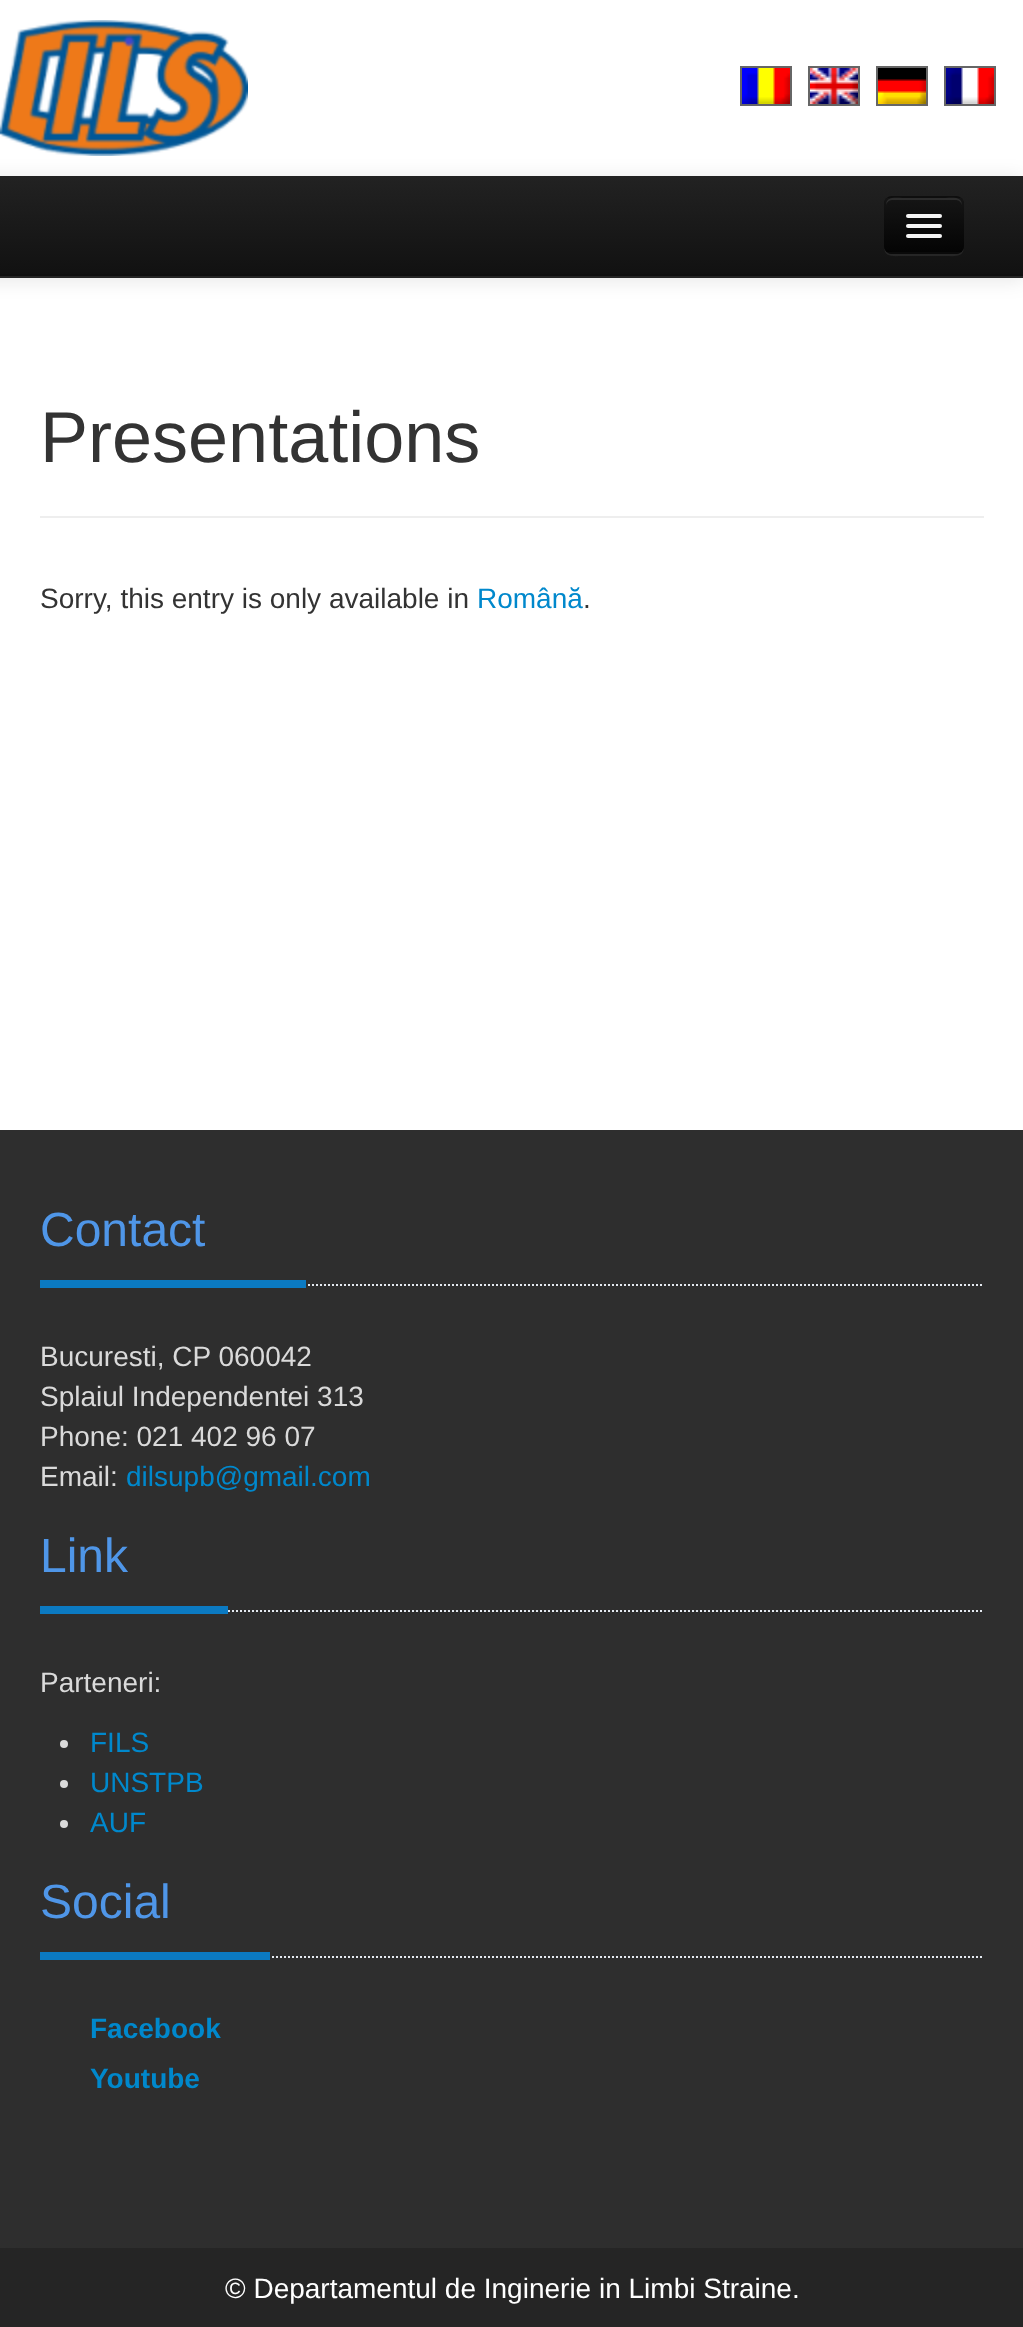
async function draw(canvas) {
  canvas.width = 1023
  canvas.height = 2327
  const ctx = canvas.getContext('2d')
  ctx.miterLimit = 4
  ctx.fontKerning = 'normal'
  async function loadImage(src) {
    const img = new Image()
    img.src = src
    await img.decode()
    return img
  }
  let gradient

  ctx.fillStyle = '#fff'
  ctx.fillRect(0, 0, 1023, 2327)
  ctx.fillStyle = '#0000001a'
  ctx.filter = 'blur(10px)'
  ctx.beginPath()
  ctx.rect(-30, 178, 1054, 102)
  ctx.fill()
  ctx.filter = 'none'
  ctx.drawImage(await loadImage('image0.png'), 0, 20, 248, 136)
  ctx.strokeStyle = '#666'
  ctx.lineWidth = 2
  ctx.strokeRect(741, 67, 50, 38)
  ctx.drawImage(await loadImage('image1.png'), 742, 68, 48, 36)
  ctx.strokeRect(809, 67, 50, 38)
  ctx.drawImage(await loadImage('image2.png'), 810, 68, 48, 36)
  ctx.strokeRect(877, 67, 50, 38)
  ctx.drawImage(await loadImage('image3.png'), 878, 68, 48, 36)
  ctx.strokeRect(945, 67, 50, 38)
  ctx.drawImage(await loadImage('image4.png'), 946, 68, 48, 36)
  gradient = ctx.createLinearGradient(492, 176, 492, 276)
  gradient.addColorStop(0, '#222')
  gradient.addColorStop(1, '#111')
  ctx.fillStyle = gradient
  ctx.fillRect(0, 176, 1023, 98)
  ctx.fillStyle = '#0f0f0f'
  ctx.fillRect(0, 274, 1023, 2)
  ctx.fillStyle = '#252525'
  ctx.fillRect(0, 276, 1023, 2)
  ctx.fillStyle = '#262626'
  ctx.beginPath()
  ctx.moveTo(884, 246)
  ctx.bezierCurveTo(884, 258, 893, 256, 903, 256)
  ctx.lineTo(945, 256)
  ctx.bezierCurveTo(955, 256, 964, 258, 964, 246)
  ctx.bezierCurveTo(964, 250, 960, 254, 956, 254)
  ctx.lineTo(892, 254)
  ctx.bezierCurveTo(888, 254, 884, 250, 884, 246)
  ctx.closePath()
  ctx.fill()
  ctx.fillStyle = '#0e0e0e'
  ctx.beginPath()
  ctx.roundRect(884, 196, 80, 58, 8)
  ctx.fill()
  ctx.save()
  ctx.beginPath()
  ctx.roundRect(884, 196, 80, 58, 8)
  ctx.clip()
  gradient = ctx.createLinearGradient(924, 198, 924, 252)
  gradient.addColorStop(0, '#151515')
  gradient.addColorStop(1, '#040404')
  ctx.fillStyle = gradient
  ctx.fillRect(884, 198, 80, 54)
  ctx.restore()
  ctx.fillStyle = '#2c2c2c'
  ctx.beginPath()
  ctx.moveTo(892, 200)
  ctx.lineTo(956, 200)
  ctx.bezierCurveTo(959, 200, 962, 203, 962, 206)
  ctx.bezierCurveTo(962, 196, 954, 198, 945, 198)
  ctx.lineTo(903, 198)
  ctx.bezierCurveTo(894, 198, 886, 196, 886, 206)
  ctx.bezierCurveTo(886, 203, 889, 200, 892, 200)
  ctx.closePath()
  ctx.fill()
  ctx.beginPath()
  ctx.moveTo(961, 251)
  ctx.bezierCurveTo(959.5, 252.5, 958, 253, 956, 253)
  ctx.lineTo(892, 253)
  ctx.bezierCurveTo(890, 253, 888.5, 252.5, 887, 251)
  ctx.strokeStyle = '#00000040'
  ctx.stroke()
  ctx.fillStyle = '#0b0b0b'
  ctx.beginPath()
  ctx.moveTo(906.5, 217)
  ctx.bezierCurveTo(904, 221, 913, 220, 913.5, 220)
  ctx.lineTo(934.5, 220)
  ctx.bezierCurveTo(935, 220, 944, 221, 941.5, 217)
  ctx.bezierCurveTo(941.5, 217.5, 940.5, 218, 940, 218)
  ctx.lineTo(908, 218)
  ctx.bezierCurveTo(907.5, 218, 906.5, 217.5, 906.5, 217)
  ctx.closePath()
  ctx.fill()
  ctx.fillStyle = '#f5f5f5'
  ctx.beginPath()
  ctx.roundRect(906, 214, 36, 4, 2)
  ctx.fill()
  ctx.fillStyle = '#080808'
  ctx.beginPath()
  ctx.moveTo(906.5, 227)
  ctx.bezierCurveTo(904, 231, 913, 230, 913.5, 230)
  ctx.lineTo(934.5, 230)
  ctx.bezierCurveTo(935, 230, 944, 231, 941.5, 227)
  ctx.bezierCurveTo(941.5, 227.5, 940.5, 228, 940, 228)
  ctx.lineTo(908, 228)
  ctx.bezierCurveTo(907.5, 228, 906.5, 227.5, 906.5, 227)
  ctx.closePath()
  ctx.fill()
  ctx.fillStyle = '#f5f5f5'
  ctx.beginPath()
  ctx.roundRect(906, 224, 36, 4, 2)
  ctx.fill()
  ctx.beginPath()
  ctx.roundRect(906, 234, 36, 4, 2)
  ctx.fill()
  ctx.fillStyle = '#eee'
  ctx.fillRect(40, 516, 944, 2)
  ctx.font = '72px Liberation Sans'
  ctx.fillStyle = '#333'
  ctx.fillText('Presentations', 40, 462)
  ctx.font = '28px Liberation Sans'
  ctx.fillText('Sorry, this entry is only available in', 40, 608)
  ctx.fillStyle = '#08c'
  ctx.fillText('Română', 477, 608)
  ctx.fillStyle = '#333'
  ctx.fillText('.', 583, 608)
  ctx.fillStyle = '#2e2e2e'
  ctx.fillRect(0, 1130, 1023, 1118)
  ctx.beginPath()
  ctx.moveTo(40, 1285)
  ctx.lineTo(984, 1285)
  ctx.strokeStyle = '#e4e9f0'
  ctx.setLineDash([2, 2])
  ctx.stroke()
  ctx.fillStyle = '#0b7ac2'
  ctx.fillRect(40, 1280, 266, 8)
  ctx.font = '48px Liberation Sans'
  ctx.fillStyle = '#4f96e8'
  ctx.fillText('Contact', 40, 1246)
  ctx.font = '28px Liberation Sans'
  ctx.fillStyle = '#dadada'
  ctx.fillText('Bucuresti, CP 060042', 40, 1366)
  ctx.fillText('Splaiul Independentei 313', 40, 1406)
  ctx.fillText('Phone: 021 402 96 07', 40, 1446)
  ctx.fillText('Email:', 40, 1486)
  ctx.fillStyle = '#08c'
  ctx.fillText('dilsupb@gmail.com', 126, 1486)
  ctx.beginPath()
  ctx.moveTo(40, 1611)
  ctx.lineTo(984, 1611)
  ctx.stroke()
  ctx.fillStyle = '#0b7ac2'
  ctx.fillRect(40, 1606, 188, 8)
  ctx.font = '48px Liberation Sans'
  ctx.fillStyle = '#4f96e8'
  ctx.fillText('Link', 40, 1572)
  ctx.font = '28px Liberation Sans'
  ctx.fillStyle = '#dadada'
  ctx.fillText('Parteneri:', 40, 1692)
  ctx.beginPath()
  ctx.arc(64, 1744, 4, 0, 2 * Math.PI)
  ctx.fill()
  ctx.fillStyle = '#08c'
  ctx.fillText('FILS', 90, 1752)
  ctx.fillStyle = '#dadada'
  ctx.beginPath()
  ctx.arc(64, 1784, 4, 0, 2 * Math.PI)
  ctx.fill()
  ctx.fillStyle = '#08c'
  ctx.fillText('UNSTPB', 90, 1792)
  ctx.fillStyle = '#dadada'
  ctx.beginPath()
  ctx.arc(64, 1824, 4, 0, 2 * Math.PI)
  ctx.fill()
  ctx.fillStyle = '#08c'
  ctx.fillText('AUF', 90, 1832)
  ctx.beginPath()
  ctx.moveTo(40, 1957)
  ctx.lineTo(984, 1957)
  ctx.stroke()
  ctx.fillStyle = '#0b7ac2'
  ctx.fillRect(40, 1952, 230, 8)
  ctx.font = '48px Liberation Sans'
  ctx.fillStyle = '#4f96e8'
  ctx.fillText('Social', 40, 1918)
  ctx.font = 'bold 28px Liberation Sans'
  ctx.fillStyle = '#08c'
  ctx.fillText('Facebook', 90, 2038)
  ctx.fillText('Youtube', 90, 2088)
  ctx.fillStyle = '#252525'
  ctx.fillRect(0, 2248, 1023, 79)
  ctx.font = '28px Liberation Sans'
  ctx.fillStyle = '#fff'
  ctx.fillText('© Departamentul de Inginerie in Limbi Straine.', 225, 2298)
}

draw(document.querySelector('canvas'))
